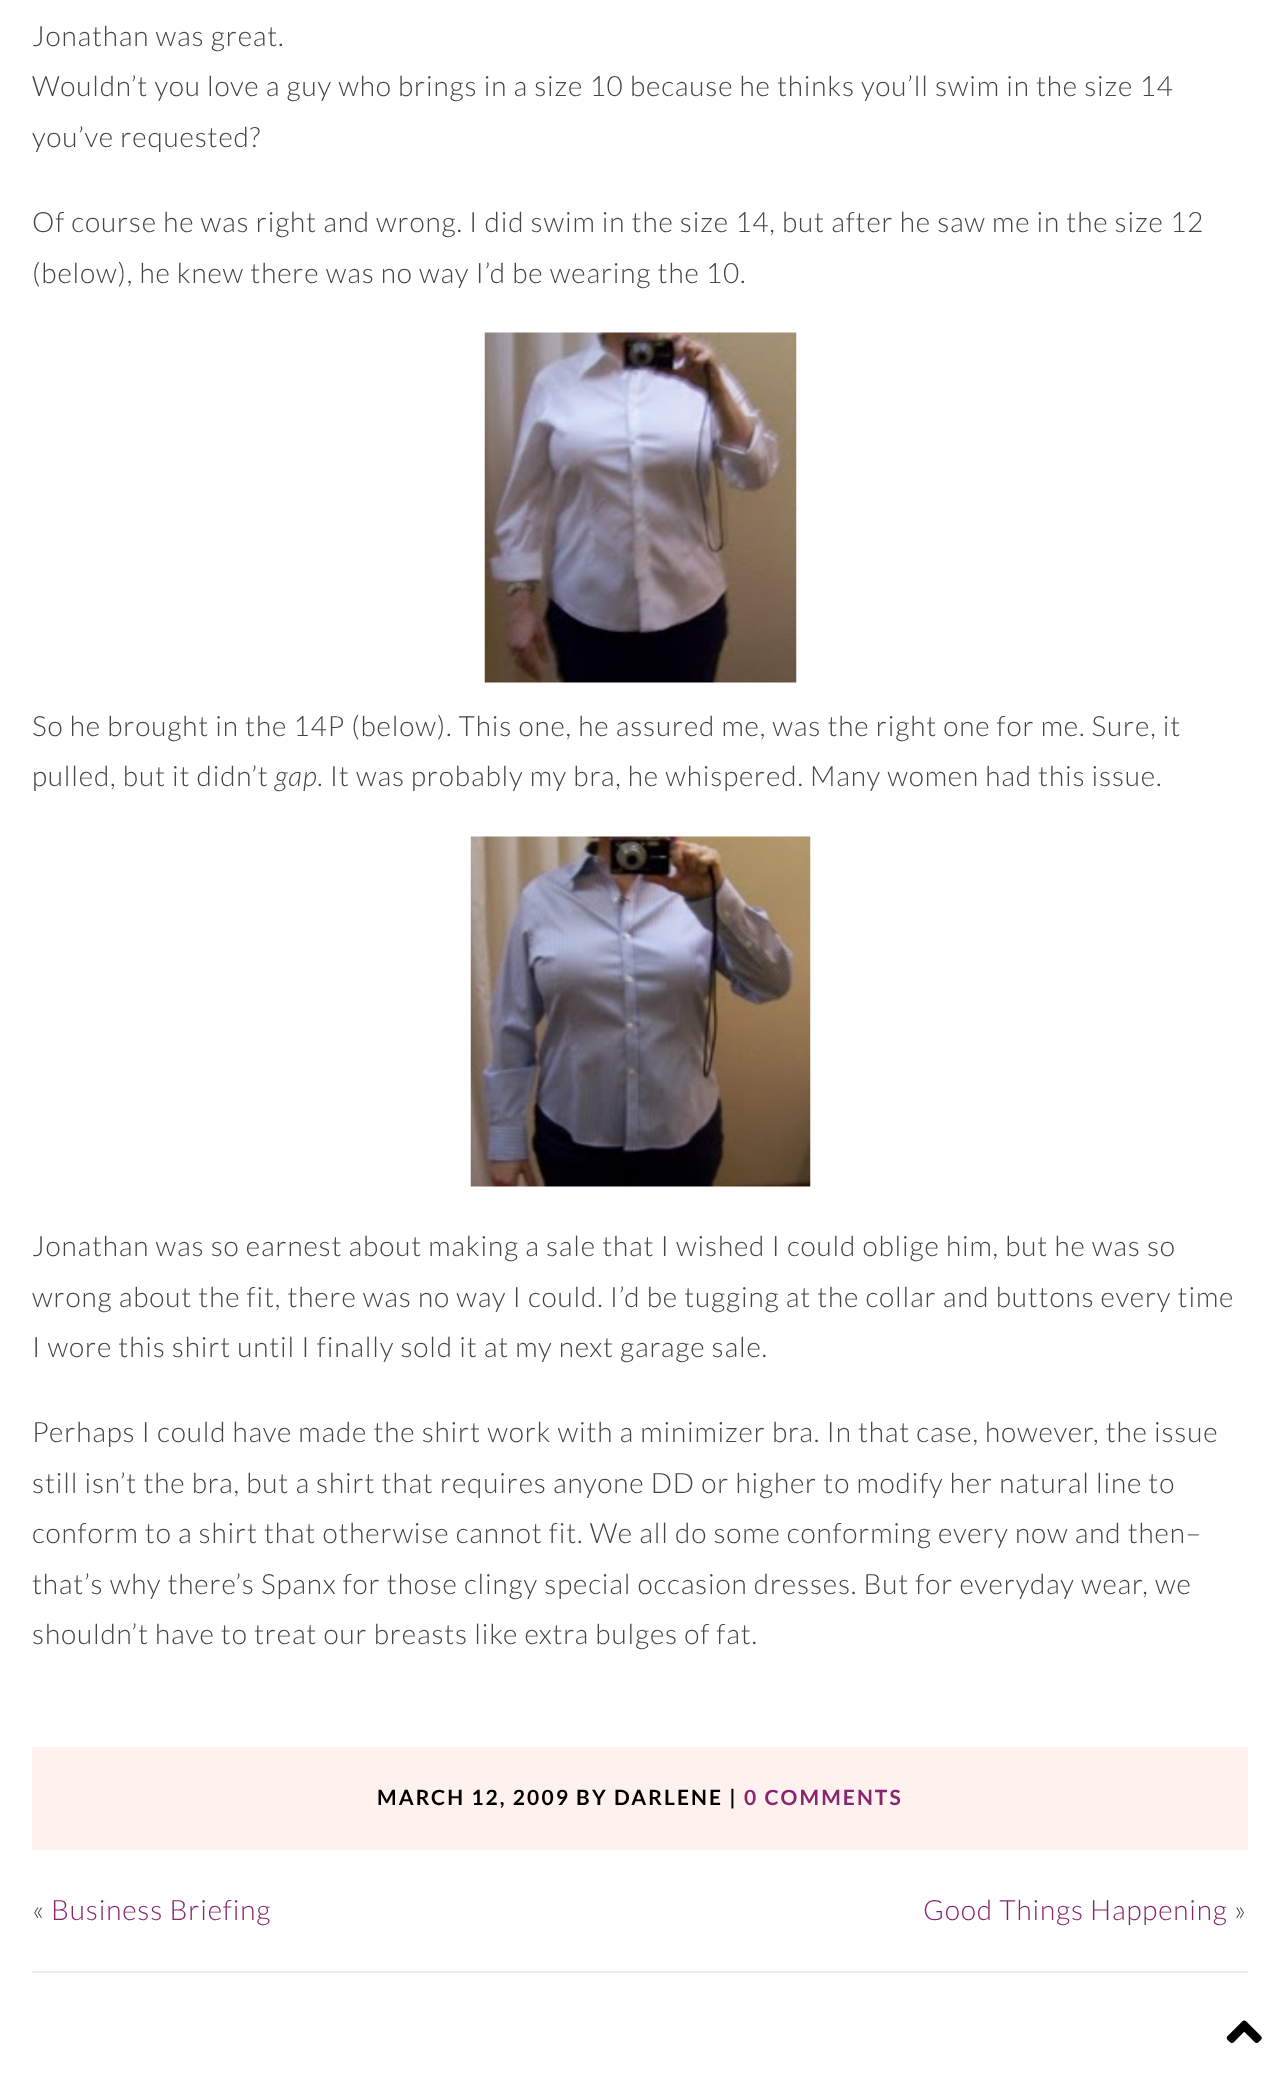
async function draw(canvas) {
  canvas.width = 1279
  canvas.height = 2077
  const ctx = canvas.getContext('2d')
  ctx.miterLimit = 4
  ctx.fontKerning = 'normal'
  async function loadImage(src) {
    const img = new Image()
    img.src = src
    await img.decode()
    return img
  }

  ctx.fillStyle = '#fff'
  ctx.fillRect(0, 0, 1279, 2077)
  ctx.letterSpacing = '0.85px'
  ctx.font = '300 28px Lato'
  ctx.fillStyle = '#444'
  ctx.fillText('Jonathan was great.', 32, 46)
  ctx.fillText('Wouldn’t you love a guy who brings in a size 10 because he thinks you’ll swim in the size 14', 32, 96)
  ctx.fillText('you’ve requested?', 32, 147)
  ctx.fillText('Of course he was right and wrong. I did swim in the size 14, but after he saw me in the size 12', 32, 232)
  ctx.fillText('(below), he knew there was no way I’d be wearing the 10.', 32, 283)
  ctx.drawImage(await loadImage('image0.png'), 484, 332, 313, 351)
  ctx.fillText('So he brought in the 14P (below). This one, he assured me, was the right one for me. Sure, it', 32, 736)
  ctx.fillText('pulled, but it didn’t', 32, 786)
  ctx.font = 'italic 300 28px Lato'
  ctx.fillText('gap', 275, 786)
  ctx.font = '300 28px Lato'
  ctx.fillText('. It was probably my bra, he whispered. Many women had this issue.', 317, 786)
  ctx.drawImage(await loadImage('image1.png'), 470, 836, 341, 351)
  ctx.fillText('Jonathan was so earnest about making a sale that I wished I could oblige him, but he was so', 32, 1256)
  ctx.fillText('wrong about the fit, there was no way I could. I’d be tugging at the collar and buttons every time', 32, 1307)
  ctx.fillText('I wore this shirt until I finally sold it at my next garage sale.', 32, 1357)
  ctx.fillText('Perhaps I could have made the shirt work with a minimizer bra. In that case, however, the issue', 32, 1442)
  ctx.fillText('still isn’t the bra, but a shirt that requires anyone DD or higher to modify her natural line to', 32, 1493)
  ctx.fillText('conform to a shirt that otherwise cannot fit. We all do some conforming every now and then–', 32, 1543)
  ctx.fillText('that’s why there’s Spanx for those clingy special occasion dresses. But for everyday wear, we', 32, 1594)
  ctx.fillText('shouldn’t have to treat our breasts like extra bulges of fat.', 32, 1644)
  ctx.fillStyle = '#fff1ee'
  ctx.fillRect(32, 1747, 1216, 103)
  ctx.letterSpacing = '2.1px'
  ctx.font = 'bold 21px Lato'
  ctx.fillStyle = '#000'
  ctx.fillText('MARCH 12, 2009 BY DARLENE |', 377, 1805)
  ctx.fillStyle = '#872570'
  ctx.fillText('0 COMMENTS', 744, 1805)
  ctx.fillStyle = '#eee'
  ctx.fillRect(32, 1971, 1216, 2)
  ctx.letterSpacing = '0.85px'
  ctx.font = '300 28px Lato'
  ctx.fillStyle = '#444'
  ctx.fillText('«', 32, 1920)
  ctx.fillStyle = '#872570'
  ctx.fillText('Business Briefing', 51, 1920)
  ctx.fillText('Good Things Happening', 923, 1920)
  ctx.fillStyle = '#444'
  ctx.fillText('»', 1234, 1920)
  ctx.drawImage(await loadImage('image2.png'), 1226, 2020, 36, 23)
}

draw(document.querySelector('canvas'))
